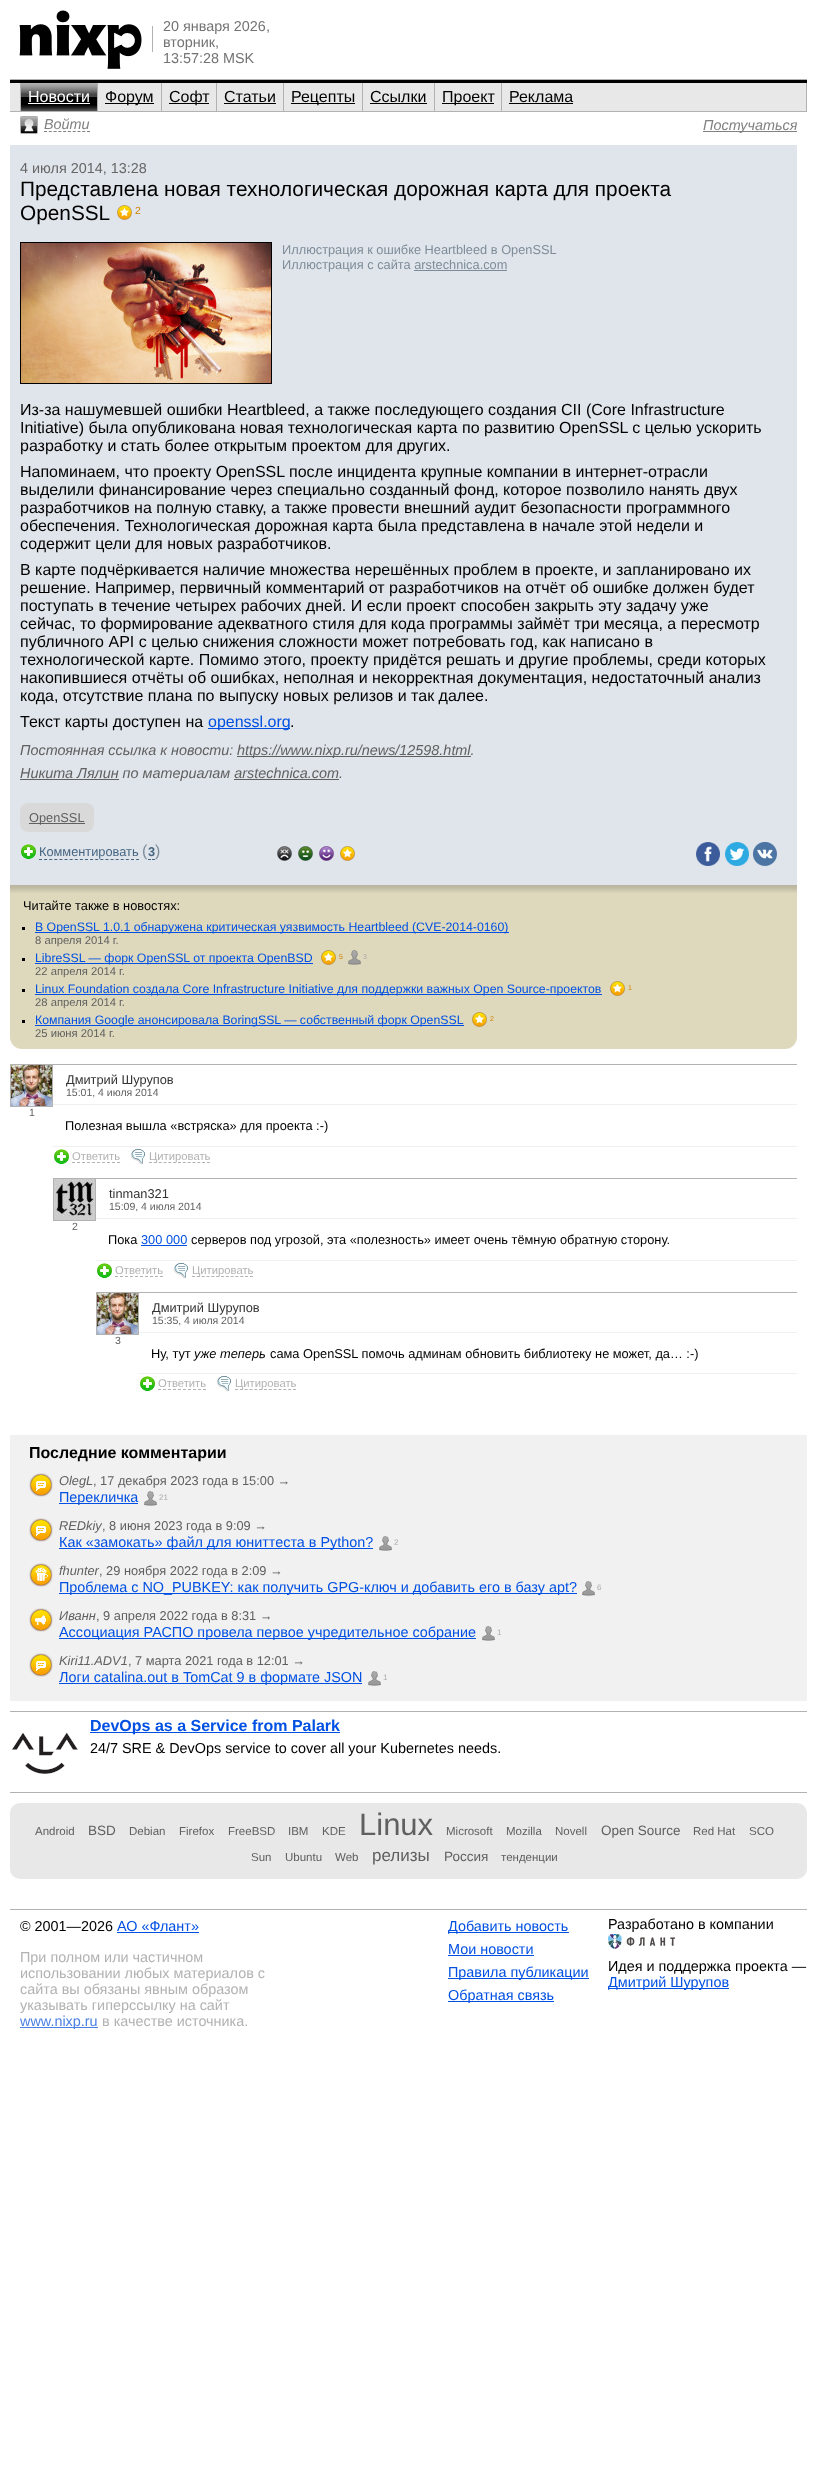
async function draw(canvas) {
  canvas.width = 817
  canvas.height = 2484
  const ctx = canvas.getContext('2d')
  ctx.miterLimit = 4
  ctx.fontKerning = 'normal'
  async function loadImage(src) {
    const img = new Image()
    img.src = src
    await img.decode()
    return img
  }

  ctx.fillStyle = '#fff'
  ctx.fillRect(0, 0, 817, 2484)
  ctx.fillStyle = '#b2b2b2'
  ctx.fillRect(10, 79, 797, 1)
  ctx.drawImage(await loadImage('image0.png'), 19, 10, 123, 59)
  ctx.fillRect(152, 26, 1, 26)
  ctx.font = '14.4px Liberation Sans'
  ctx.fillStyle = '#737373'
  ctx.fillText('20 января 2026,', 163, 31)
  ctx.fillText('вторник,', 163, 47)
  ctx.fillText('13:57:28 MSK', 163, 63)
  ctx.fillStyle = '#e8e8e8'
  ctx.fillRect(10, 83, 796, 28)
  ctx.fillStyle = '#000'
  ctx.fillRect(10, 80, 797, 3)
  ctx.fillStyle = '#b2b2b2'
  ctx.fillRect(10, 111, 797, 1)
  ctx.fillRect(806, 83, 1, 28)
  ctx.drawImage(await loadImage('image1.png'), 21, 83, 76, 28)
  ctx.fillRect(20, 83, 1, 28)
  ctx.font = '16px Liberation Sans'
  ctx.fillStyle = '#fff'
  ctx.fillText('Новости', 28, 102)
  ctx.fillRect(28, 103, 62, 1)
  ctx.fillStyle = '#b2b2b2'
  ctx.fillRect(97, 83, 1, 28)
  ctx.fillStyle = '#000'
  ctx.fillRect(105, 103, 49, 1)
  ctx.fillText('Форум', 105, 102)
  ctx.fillStyle = '#b2b2b2'
  ctx.fillRect(161, 83, 1, 28)
  ctx.fillStyle = '#000'
  ctx.fillRect(169, 103, 40, 1)
  ctx.fillText('Софт', 169, 102)
  ctx.fillStyle = '#b2b2b2'
  ctx.fillRect(216, 83, 1, 28)
  ctx.fillStyle = '#000'
  ctx.fillText('Статьи', 224, 102)
  ctx.fillRect(224, 103, 52, 1)
  ctx.fillStyle = '#b2b2b2'
  ctx.fillRect(283, 83, 1, 28)
  ctx.fillStyle = '#000'
  ctx.fillRect(291, 103, 64, 1)
  ctx.fillText('Рецепты', 291, 102)
  ctx.fillStyle = '#b2b2b2'
  ctx.fillRect(362, 83, 1, 28)
  ctx.fillStyle = '#000'
  ctx.fillText('Ссылки', 370, 102)
  ctx.fillRect(370, 103, 57, 1)
  ctx.fillStyle = '#b2b2b2'
  ctx.fillRect(434, 83, 1, 28)
  ctx.fillStyle = '#000'
  ctx.fillRect(442, 103, 52, 1)
  ctx.fillText('Проект', 442, 102)
  ctx.fillStyle = '#b2b2b2'
  ctx.fillRect(501, 83, 1, 28)
  ctx.fillStyle = '#000'
  ctx.fillText('Реклама', 509, 102)
  ctx.fillRect(509, 103, 64, 1)
  ctx.drawImage(await loadImage('image2.png'), 20, 116, 18, 18)
  ctx.font = 'italic 14.4px Liberation Sans'
  ctx.fillStyle = '#818181'
  ctx.fillText('Войти', 44, 129)
  ctx.beginPath()
  ctx.moveTo(44, 131.5)
  ctx.lineTo(90, 131.5)
  ctx.strokeStyle = '#818181'
  ctx.setLineDash([3, 1.78])
  ctx.stroke()
  ctx.fillRect(703, 131, 94, 1)
  ctx.fillText('Постучаться', 703, 130)
  ctx.fillStyle = '#e0e5eb'
  ctx.fillRect(10, 145, 787, 894)
  ctx.font = '14.4px Liberation Sans'
  ctx.fillStyle = '#666'
  ctx.fillText('4 июля 2014, 13:28', 20, 173)
  ctx.font = '20.8px Liberation Sans'
  ctx.fillStyle = '#000'
  ctx.fillText('Представлена новая технологическая дорожная карта для проекта', 20, 196)
  ctx.fillText('OpenSSL', 20, 220)
  ctx.drawImage(await loadImage('image3.png'), 117, 205, 15, 15)
  ctx.font = '10.5px Liberation Sans'
  ctx.fillStyle = '#d28300'
  ctx.fillText('2', 135, 214)
  ctx.strokeStyle = '#000'
  ctx.setLineDash([])
  ctx.strokeRect(20.5, 242.5, 251, 141)
  ctx.drawImage(await loadImage('image4.png'), 21, 243, 250, 140)
  ctx.font = '12.8px Liberation Sans'
  ctx.fillStyle = '#7e8c99'
  ctx.fillText('Иллюстрация к ошибке Heartbleed в OpenSSL', 282, 254)
  ctx.fillText('Иллюстрация с сайта arstechnica.com', 282, 269)
  ctx.fillStyle = '#7b8b9a'
  ctx.fillRect(414, 270, 93, 1)
  ctx.font = '16px Liberation Sans'
  ctx.fillStyle = '#000'
  ctx.fillText('Из-за нашумевшей ошибки Heartbleed, а также последующего создания CII (Core Infrastructure', 20, 415)
  ctx.fillText('Initiative) была опубликована новая технологическая карта по развитию OpenSSL с целью ускорить', 20, 433)
  ctx.fillText('разработку и стать более открытым проектом для других.', 20, 451)
  ctx.fillText('Напоминаем, что проекту OpenSSL после инцидента крупные компании в интернет-отрасли', 20, 477)
  ctx.fillText('выделили финансирование через специально созданный фонд, которое позволило нанять двух', 20, 495)
  ctx.fillText('разработчиков на полную ставку, а также провести внешний аудит безопасности программного', 20, 513)
  ctx.fillText('обеспечения. Технологическая дорожная карта была представлена в начале этой недели и', 20, 531)
  ctx.fillText('содержит цели для новых разработчиков.', 20, 549)
  ctx.fillText('В карте подчёркивается наличие множества нерешённых проблем в проекте, и запланировано их', 20, 575)
  ctx.fillText('решение. Например, первичный комментарий от разработчиков на отчёт об ошибке должен будет', 20, 593)
  ctx.fillText('поступать в течение четырех рабочих дней. И если проект способен закрыть эту задачу уже', 20, 611)
  ctx.fillText('сейчас, то формирование адекватного стиля для кода программы займёт три месяца, а пересмотр', 20, 629)
  ctx.fillText('публичного API с целью снижения сложности может потребовать год, как написано в', 20, 647)
  ctx.fillText('технологической карте. Помимо этого, проекту придётся решать и другие проблемы, среди которых', 20, 665)
  ctx.fillText('накопившиеся отчёты об ошибках, неполная и некорректная документация, недостаточный анализ', 20, 683)
  ctx.fillText('кода, отсутствие плана по выпуску новых релизов и так далее.', 20, 701)
  ctx.fillText('Текст карты доступен на', 20, 727)
  ctx.fillStyle = '#0050e3'
  ctx.fillRect(208, 728, 82, 1)
  ctx.fillText('openssl.org', 208, 727)
  ctx.fillStyle = '#000'
  ctx.fillText('.', 290, 727)
  ctx.font = 'italic 14.4px Liberation Sans'
  ctx.fillStyle = '#606060'
  ctx.fillText('Постоянная ссылка к новости:', 20, 755)
  ctx.fillRect(237, 756, 234, 1)
  ctx.fillText('https://www.nixp.ru/news/12598.html.', 237, 755)
  ctx.fillRect(20, 779, 99, 1)
  ctx.fillText('Никита Лялин по материалам arstechnica.com.', 20, 778)
  ctx.fillRect(234, 779, 105, 1)
  ctx.fillStyle = '#d9d9d9'
  ctx.beginPath()
  ctx.roundRect(20, 803, 74, 29, 8)
  ctx.fill()
  ctx.fillStyle = '#606060'
  ctx.fillRect(29, 823, 56, 1)
  ctx.font = '12.8px Liberation Sans'
  ctx.fillText('OpenSSL', 29, 822)
  ctx.drawImage(await loadImage('image5.png'), 21, 844, 15, 15)
  ctx.fillStyle = '#466582'
  ctx.fillText('Комментировать', 39, 856)
  ctx.beginPath()
  ctx.moveTo(39, 859.5)
  ctx.lineTo(139, 859.5)
  ctx.strokeStyle = '#466582'
  ctx.setLineDash([3, 2.11])
  ctx.stroke()
  ctx.font = '16px Liberation Sans'
  ctx.fillStyle = '#7e8c99'
  ctx.fillText('(', 142, 856)
  ctx.font = 'bold 12.8px Liberation Sans'
  ctx.fillStyle = '#466582'
  ctx.fillText('3', 148, 856)
  ctx.beginPath()
  ctx.moveTo(148, 859.5)
  ctx.lineTo(151, 859.5)
  ctx.moveTo(152, 859.5)
  ctx.lineTo(155, 859.5)
  ctx.setLineDash([])
  ctx.stroke()
  ctx.font = '16px Liberation Sans'
  ctx.fillStyle = '#7e8c99'
  ctx.fillText(')', 155, 856)
  ctx.drawImage(await loadImage('image6.png'), 277, 846, 15, 15)
  ctx.drawImage(await loadImage('image7.png'), 298, 846, 15, 15)
  ctx.drawImage(await loadImage('image8.png'), 319, 846, 15, 15)
  ctx.drawImage(await loadImage('image3.png'), 340, 846, 15, 15)
  ctx.drawImage(await loadImage('image9.png'), 696, 842, 24, 24)
  ctx.drawImage(await loadImage('image10.png'), 725, 842, 24, 24)
  ctx.drawImage(await loadImage('image11.png'), 753, 842, 24, 24)
  ctx.fillStyle = '#ded9bc'
  ctx.beginPath()
  ctx.roundRect(10, 885, 787, 164, [0, 0, 12, 12])
  ctx.fill()
  ctx.drawImage(await loadImage('image12.png'), 10, 885, 787, 8)
  ctx.font = '12.8px Liberation Sans'
  ctx.fillStyle = '#000'
  ctx.fillText('Читайте также в новостях:', 23, 910)
  ctx.fillRect(22, 927, 3, 3)
  ctx.fillStyle = '#0050e3'
  ctx.fillRect(35, 932, 474, 1)
  ctx.font = '12.3px Liberation Sans'
  ctx.fillText('В OpenSSL 1.0.1 обнаружена критическая уязвимость Heartbleed (CVE-2014-0160)', 35, 931)
  ctx.font = '11.25px Liberation Sans'
  ctx.fillStyle = '#606060'
  ctx.fillText('8 апреля 2014 г.', 35, 944)
  ctx.fillStyle = '#000'
  ctx.fillRect(22, 958, 3, 3)
  ctx.fillStyle = '#0050e3'
  ctx.fillRect(35, 963, 278, 1)
  ctx.font = '12.3px Liberation Sans'
  ctx.fillText('LibreSSL — форк OpenSSL от проекта OpenBSD', 35, 962)
  ctx.drawImage(await loadImage('image13.png'), 321, 950, 15, 15)
  ctx.font = '7px Liberation Sans'
  ctx.fillStyle = '#d28300'
  ctx.fillText('5', 339, 959)
  ctx.drawImage(await loadImage('image14.png'), 348, 950, 13, 15)
  ctx.fillStyle = '#aaa'
  ctx.fillText('3', 363, 959)
  ctx.font = '11.25px Liberation Sans'
  ctx.fillStyle = '#606060'
  ctx.fillText('22 апреля 2014 г.', 35, 975)
  ctx.fillStyle = '#0050e3'
  ctx.fillRect(35, 994, 567, 1)
  ctx.font = '12.3px Liberation Sans'
  ctx.fillText('Linux Foundation создала Core Infrastructure Initiative для поддержки важных Open Source-проектов', 35, 993)
  ctx.drawImage(await loadImage('image13.png'), 610, 981, 15, 15)
  ctx.font = '7px Liberation Sans'
  ctx.fillStyle = '#d28300'
  ctx.fillText('1', 628, 990)
  ctx.fillStyle = '#000'
  ctx.fillRect(22, 989, 3, 3)
  ctx.font = '11.25px Liberation Sans'
  ctx.fillStyle = '#606060'
  ctx.fillText('28 апреля 2014 г.', 35, 1006)
  ctx.fillStyle = '#0050e3'
  ctx.fillRect(35, 1025, 429, 1)
  ctx.font = '12.3px Liberation Sans'
  ctx.fillText('Компания Google анонсировала BoringSSL — собственный форк OpenSSL', 35, 1024)
  ctx.drawImage(await loadImage('image13.png'), 472, 1012, 15, 15)
  ctx.font = '7px Liberation Sans'
  ctx.fillStyle = '#d28300'
  ctx.fillText('2', 490, 1021)
  ctx.fillStyle = '#000'
  ctx.fillRect(22, 1020, 3, 3)
  ctx.font = '11.25px Liberation Sans'
  ctx.fillStyle = '#606060'
  ctx.fillText('25 июня 2014 г.', 35, 1037)
  ctx.fillStyle = '#b2b2b2'
  ctx.fillRect(10, 1064, 787, 1)
  ctx.fillStyle = '#f0f0f0'
  ctx.fillRect(53, 1104, 744, 1)
  ctx.font = '12.8px Liberation Sans'
  ctx.fillStyle = '#333'
  ctx.fillText('Дмитрий Шурупов', 66, 1084)
  ctx.font = '10.5px Liberation Sans'
  ctx.fillStyle = '#606060'
  ctx.fillText('15:01, 4 июля 2014', 66, 1096)
  ctx.fillStyle = '#b2b2b2'
  ctx.fillRect(52, 1065, 1, 42)
  ctx.fillRect(10, 1106, 43, 1)
  ctx.fillRect(10, 1065, 1, 42)
  ctx.drawImage(await loadImage('image15.png'), 11, 1065, 41, 41)
  ctx.fillStyle = '#606060'
  ctx.fillText('1', 29, 1116)
  ctx.fillStyle = '#f0f0f0'
  ctx.fillRect(53, 1146, 744, 1)
  ctx.font = '12.8px Liberation Sans'
  ctx.fillStyle = '#000'
  ctx.fillText('Полезная вышла «встряска» для проекта :-)', 65, 1130)
  ctx.drawImage(await loadImage('image16.png'), 54, 1149, 15, 15)
  ctx.font = '11.25px Liberation Sans'
  ctx.fillStyle = '#b2b2b2'
  ctx.fillText('Ответить', 72, 1160)
  ctx.beginPath()
  ctx.moveTo(72, 1162.5)
  ctx.lineTo(120, 1162.5)
  ctx.strokeStyle = '#b2b2b2'
  ctx.setLineDash([3, 2])
  ctx.stroke()
  ctx.drawImage(await loadImage('image17.png'), 130, 1149, 15, 16)
  ctx.beginPath()
  ctx.moveTo(149, 1162.5)
  ctx.lineTo(210, 1162.5)
  ctx.setLineDash([3, 1.83])
  ctx.stroke()
  ctx.fillText('Цитировать', 149, 1160)
  ctx.fillRect(53, 1178, 744, 1)
  ctx.fillStyle = '#f0f0f0'
  ctx.fillRect(96, 1218, 701, 1)
  ctx.font = '12.8px Liberation Sans'
  ctx.fillStyle = '#333'
  ctx.fillText('tinman321', 109, 1198)
  ctx.font = '10.5px Liberation Sans'
  ctx.fillStyle = '#606060'
  ctx.fillText('15:09, 4 июля 2014', 109, 1210)
  ctx.fillStyle = '#b2b2b2'
  ctx.fillRect(95, 1179, 1, 42)
  ctx.fillRect(53, 1220, 43, 1)
  ctx.fillRect(53, 1179, 1, 42)
  ctx.drawImage(await loadImage('image18.png'), 54, 1179, 41, 41)
  ctx.fillStyle = '#606060'
  ctx.fillText('2', 72, 1230)
  ctx.fillStyle = '#f0f0f0'
  ctx.fillRect(96, 1260, 701, 1)
  ctx.font = '12.8px Liberation Sans'
  ctx.fillStyle = '#000'
  ctx.fillText('Пока', 108, 1244)
  ctx.fillStyle = '#0050e3'
  ctx.fillText('300 000', 141, 1244)
  ctx.fillRect(141, 1245, 46, 1)
  ctx.fillStyle = '#000'
  ctx.fillText('серверов под угрозой, эта «полезность» имеет очень тёмную обратную сторону.', 191, 1244)
  ctx.drawImage(await loadImage('image16.png'), 97, 1263, 15, 15)
  ctx.font = '11.25px Liberation Sans'
  ctx.fillStyle = '#b2b2b2'
  ctx.fillText('Ответить', 115, 1274)
  ctx.beginPath()
  ctx.moveTo(115, 1276.5)
  ctx.lineTo(163, 1276.5)
  ctx.setLineDash([3, 2])
  ctx.stroke()
  ctx.drawImage(await loadImage('image17.png'), 173, 1263, 15, 16)
  ctx.beginPath()
  ctx.moveTo(192, 1276.5)
  ctx.lineTo(253, 1276.5)
  ctx.setLineDash([3, 1.83])
  ctx.stroke()
  ctx.fillText('Цитировать', 192, 1274)
  ctx.fillRect(96, 1292, 701, 1)
  ctx.fillStyle = '#f0f0f0'
  ctx.fillRect(139, 1332, 658, 1)
  ctx.font = '12.8px Liberation Sans'
  ctx.fillStyle = '#333'
  ctx.fillText('Дмитрий Шурупов', 152, 1312)
  ctx.font = '10.5px Liberation Sans'
  ctx.fillStyle = '#606060'
  ctx.fillText('15:35, 4 июля 2014', 152, 1324)
  ctx.fillStyle = '#b2b2b2'
  ctx.fillRect(138, 1293, 1, 42)
  ctx.fillRect(96, 1334, 43, 1)
  ctx.fillRect(96, 1293, 1, 42)
  ctx.drawImage(await loadImage('image15.png'), 97, 1293, 41, 41)
  ctx.fillStyle = '#606060'
  ctx.fillText('3', 115, 1344)
  ctx.fillStyle = '#f0f0f0'
  ctx.fillRect(139, 1373, 658, 1)
  ctx.font = '12.8px Liberation Sans'
  ctx.fillStyle = '#000'
  ctx.fillText('Ну, тут', 151, 1358)
  ctx.font = 'italic 12.8px Liberation Sans'
  ctx.fillText('уже теперь', 194, 1358)
  ctx.font = '12.8px Liberation Sans'
  ctx.fillText('сама OpenSSL помочь админам обновить библиотеку не может, да… :-)', 270, 1358)
  ctx.drawImage(await loadImage('image16.png'), 140, 1376, 15, 15)
  ctx.font = '11.25px Liberation Sans'
  ctx.fillStyle = '#b2b2b2'
  ctx.fillText('Ответить', 158, 1387)
  ctx.beginPath()
  ctx.moveTo(158, 1389.5)
  ctx.lineTo(206, 1389.5)
  ctx.setLineDash([3, 2])
  ctx.stroke()
  ctx.drawImage(await loadImage('image17.png'), 216, 1376, 15, 16)
  ctx.beginPath()
  ctx.moveTo(235, 1389.5)
  ctx.lineTo(296, 1389.5)
  ctx.setLineDash([3, 1.83])
  ctx.stroke()
  ctx.fillText('Цитировать', 235, 1387)
  ctx.fillStyle = '#f1f1f1'
  ctx.fillRect(10, 1435, 797, 266)
  ctx.font = 'bold 16px Liberation Sans'
  ctx.fillStyle = '#000'
  ctx.fillText('Последние комментарии', 29, 1458)
  ctx.drawImage(await loadImage('image19.png'), 29, 1473, 24, 24)
  ctx.font = 'italic 12.8px Liberation Sans'
  ctx.fillStyle = '#606060'
  ctx.fillText('OlegL', 59, 1485)
  ctx.font = '12.8px Liberation Sans'
  ctx.fillText(', 17 декабря 2023 года в 15:00 →', 93, 1485)
  ctx.fillStyle = '#0050e3'
  ctx.fillRect(59, 1503, 79, 1)
  ctx.font = '14.4px Liberation Sans'
  ctx.fillText('Перекличка', 59, 1502)
  ctx.drawImage(await loadImage('image20.png'), 144, 1491, 13, 15)
  ctx.font = '8px Liberation Sans'
  ctx.fillStyle = '#aaa'
  ctx.fillText('21', 159, 1500)
  ctx.drawImage(await loadImage('image19.png'), 29, 1518, 24, 24)
  ctx.font = 'italic 12.8px Liberation Sans'
  ctx.fillStyle = '#606060'
  ctx.fillText('REDkiy', 59, 1530)
  ctx.font = '12.8px Liberation Sans'
  ctx.fillText(', 8 июня 2023 года в 9:09 →', 102, 1530)
  ctx.fillStyle = '#0050e3'
  ctx.fillRect(59, 1548, 314, 1)
  ctx.font = '14.4px Liberation Sans'
  ctx.fillText('Как «замокать» файл для юниттеста в Python?', 59, 1547)
  ctx.drawImage(await loadImage('image20.png'), 379, 1536, 13, 15)
  ctx.font = '8px Liberation Sans'
  ctx.fillStyle = '#aaa'
  ctx.fillText('2', 394, 1545)
  ctx.drawImage(await loadImage('image21.png'), 29, 1563, 24, 24)
  ctx.font = 'italic 12.8px Liberation Sans'
  ctx.fillStyle = '#606060'
  ctx.fillText('fhunter', 59, 1575)
  ctx.font = '12.8px Liberation Sans'
  ctx.fillText(', 29 ноября 2022 года в 2:09 →', 99, 1575)
  ctx.fillStyle = '#0050e3'
  ctx.fillRect(59, 1593, 518, 1)
  ctx.font = '14.4px Liberation Sans'
  ctx.fillText('Проблема с NO_PUBKEY: как получить GPG-ключ и добавить его в базу apt?', 59, 1592)
  ctx.drawImage(await loadImage('image20.png'), 582, 1581, 13, 15)
  ctx.font = '8px Liberation Sans'
  ctx.fillStyle = '#aaa'
  ctx.fillText('6', 597, 1590)
  ctx.drawImage(await loadImage('image22.png'), 29, 1608, 24, 24)
  ctx.font = 'italic 12.8px Liberation Sans'
  ctx.fillStyle = '#606060'
  ctx.fillText('Иванн', 59, 1620)
  ctx.font = '12.8px Liberation Sans'
  ctx.fillText(', 9 апреля 2022 года в 8:31 →', 96, 1620)
  ctx.fillStyle = '#0050e3'
  ctx.fillRect(59, 1638, 417, 1)
  ctx.font = '14.4px Liberation Sans'
  ctx.fillText('Ассоциация РАСПО провела первое учредительное собрание', 59, 1637)
  ctx.drawImage(await loadImage('image20.png'), 482, 1626, 13, 15)
  ctx.font = '8px Liberation Sans'
  ctx.fillStyle = '#aaa'
  ctx.fillText('1', 497, 1635)
  ctx.drawImage(await loadImage('image19.png'), 29, 1653, 24, 24)
  ctx.font = 'italic 12.8px Liberation Sans'
  ctx.fillStyle = '#606060'
  ctx.fillText('Kiri11.ADV1', 59, 1665)
  ctx.font = '12.8px Liberation Sans'
  ctx.fillText(', 7 марта 2021 года в 12:01 →', 128, 1665)
  ctx.fillStyle = '#0050e3'
  ctx.fillRect(59, 1683, 303, 1)
  ctx.font = '14.4px Liberation Sans'
  ctx.fillText('Логи catalina.out в TomCat 9 в формате JSON', 59, 1682)
  ctx.drawImage(await loadImage('image20.png'), 368, 1671, 13, 15)
  ctx.font = '8px Liberation Sans'
  ctx.fillStyle = '#aaa'
  ctx.fillText('1', 383, 1680)
  ctx.fillStyle = '#b2b2b2'
  ctx.fillRect(10, 1711, 797, 1)
  ctx.fillRect(10, 1792, 797, 1)
  ctx.fillStyle = '#0050e3'
  ctx.fillRect(90, 1732, 250, 1)
  ctx.font = 'bold 16px Liberation Sans'
  ctx.fillText('DevOps as a Service from Palark', 90, 1731)
  ctx.drawImage(await loadImage('image23.png'), 11, 1732, 67, 42)
  ctx.font = '14.4px Liberation Sans'
  ctx.fillStyle = '#000'
  ctx.fillText('24/7 SRE & DevOps service to cover all your Kubernetes needs.', 90, 1753)
  ctx.fillStyle = '#e8e8e8'
  ctx.beginPath()
  ctx.roundRect(10, 1803, 797, 76, 10)
  ctx.fill()
  ctx.font = '11.5px Liberation Sans'
  ctx.fillStyle = '#606060'
  ctx.fillText('Android', 35, 1835)
  ctx.font = '13.5px Liberation Sans'
  ctx.fillText('BSD', 88, 1835)
  ctx.font = '11.5px Liberation Sans'
  ctx.fillText('Debian', 129, 1835)
  ctx.fillText('Firefox', 179, 1835)
  ctx.fillText('FreeBSD', 228, 1835)
  ctx.fillText('IBM', 288, 1835)
  ctx.fillText('KDE', 322, 1835)
  ctx.font = '31px Liberation Sans'
  ctx.fillText('Linux', 359, 1835)
  ctx.font = '11.5px Liberation Sans'
  ctx.fillText('Microsoft', 446, 1835)
  ctx.fillText('Mozilla', 506, 1835)
  ctx.fillText('Novell', 555, 1835)
  ctx.font = '13.5px Liberation Sans'
  ctx.fillText('Open Source', 601, 1835)
  ctx.font = '11.5px Liberation Sans'
  ctx.fillText('Red Hat', 693, 1835)
  ctx.fillText('SCO', 749, 1835)
  ctx.fillText('Sun', 251, 1861)
  ctx.fillText('Ubuntu', 285, 1861)
  ctx.fillText('Web', 335, 1861)
  ctx.font = '17px Liberation Sans'
  ctx.fillText('релизы', 372, 1861)
  ctx.font = '13.5px Liberation Sans'
  ctx.fillText('Россия', 444, 1861)
  ctx.font = '11.5px Liberation Sans'
  ctx.fillText('тенденции', 501, 1861)
  ctx.fillStyle = '#b2b2b2'
  ctx.fillRect(10, 1909, 797, 1)
  ctx.font = '14.4px Liberation Sans'
  ctx.fillStyle = '#000'
  ctx.fillText('© 2001—2026', 20, 1931)
  ctx.fillStyle = '#0050e3'
  ctx.fillText('АО «Флант»', 117, 1931)
  ctx.fillRect(117, 1932, 82, 1)
  ctx.fillStyle = '#b2b2b2'
  ctx.fillText('При полном или частичном', 20, 1962)
  ctx.fillText('использовании любых материалов с', 20, 1978)
  ctx.fillText('сайта вы обязаны явным образом', 20, 1994)
  ctx.fillText('указывать гиперссылку на сайт', 20, 2010)
  ctx.fillStyle = '#4b80e2'
  ctx.fillRect(20, 2027, 78, 1)
  ctx.fillText('www.nixp.ru', 20, 2026)
  ctx.fillStyle = '#b2b2b2'
  ctx.fillText('в качестве источника.', 102, 2026)
  ctx.fillStyle = '#0050e3'
  ctx.fillRect(448, 1932, 121, 1)
  ctx.fillText('Добавить новость', 448, 1931)
  ctx.fillText('Мои новости', 448, 1954)
  ctx.fillRect(448, 1955, 86, 1)
  ctx.fillRect(448, 1978, 141, 1)
  ctx.fillText('Правила публикации', 448, 1977)
  ctx.fillRect(448, 2001, 106, 1)
  ctx.fillText('Обратная связь', 448, 2000)
  ctx.fillStyle = '#000'
  ctx.fillText('Разработано в компании', 608, 1929)
  ctx.drawImage(await loadImage('image24.png'), 608, 1934, 67, 15)
  ctx.fillText('Идея и поддержка проекта —', 608, 1971)
  ctx.fillStyle = '#0050e3'
  ctx.fillRect(608, 1988, 121, 1)
  ctx.fillText('Дмитрий Шурупов', 608, 1987)
}

draw(document.querySelector('canvas'))
